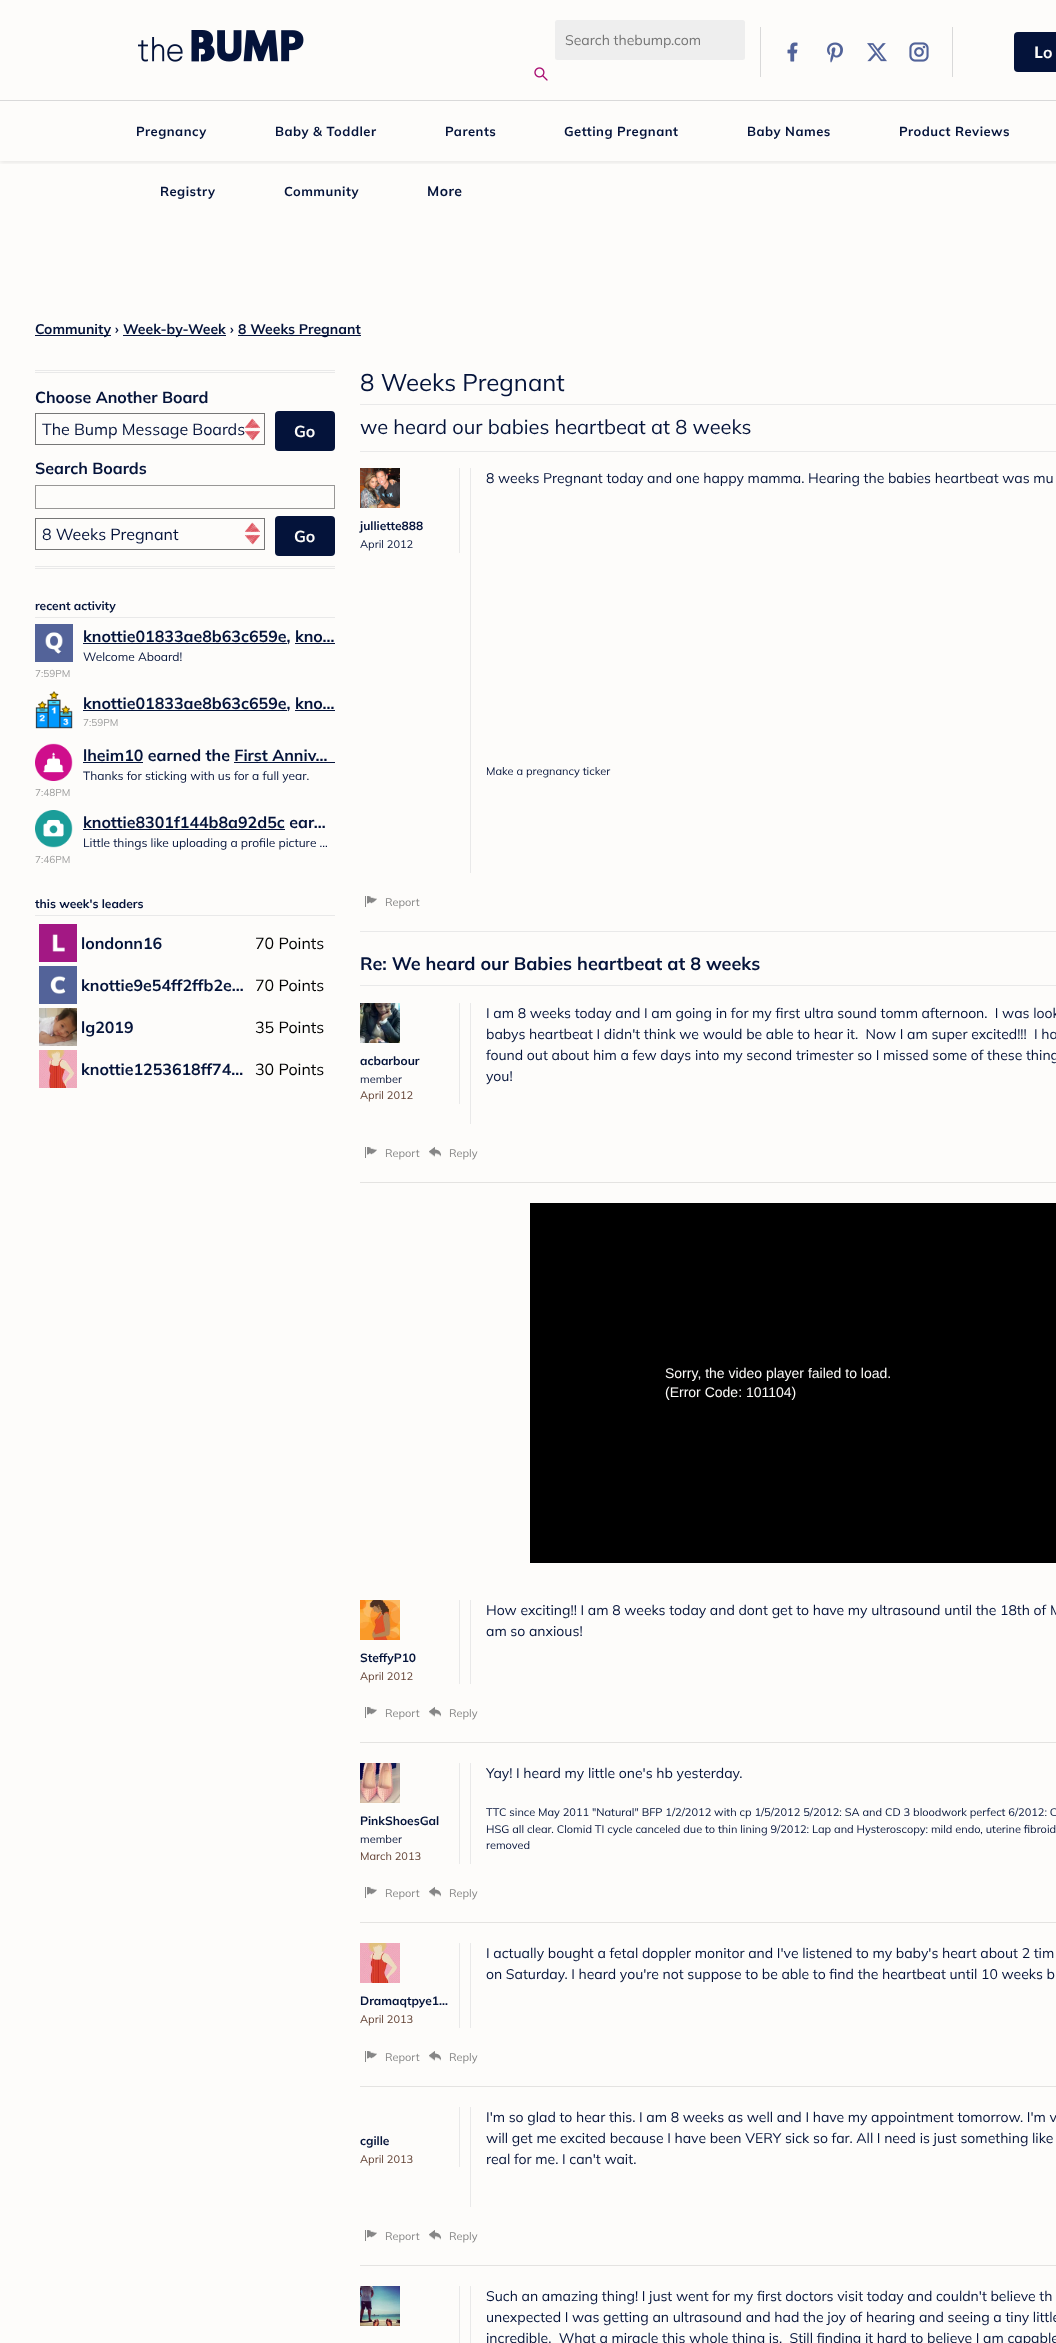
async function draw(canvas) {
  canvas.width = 1056
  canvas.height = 2343
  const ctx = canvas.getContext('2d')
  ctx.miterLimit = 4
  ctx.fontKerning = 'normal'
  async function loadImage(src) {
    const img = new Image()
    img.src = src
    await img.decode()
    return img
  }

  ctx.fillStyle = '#fdfcfa'
  ctx.fillRect(0, 0, 1056, 2343)
  ctx.drawImage(await loadImage('image0.png'), 138, 30, 166, 32)
  ctx.fillStyle = '#eee'
  ctx.beginPath()
  ctx.roundRect(555, 20, 190, 40, 2.5)
  ctx.fill()
  ctx.font = '200 14px Mulish'
  ctx.fillStyle = '#757575'
  ctx.fillText('Search thebump.com', 565, 45)
  ctx.drawImage(await loadImage('image1.png'), 534, 67, 14, 14)
  ctx.fillStyle = '#d9d9d9'
  ctx.fillRect(760, 27, 1, 50)
  ctx.drawImage(await loadImage('image2.png'), 787, 42, 11, 20)
  ctx.drawImage(await loadImage('image3.png'), 827, 42, 16, 21)
  ctx.drawImage(await loadImage('image4.png'), 867, 43, 20, 19)
  ctx.drawImage(await loadImage('image5.png'), 909, 42, 20, 20)
  ctx.fillRect(952, 27, 1, 50)
  ctx.fillStyle = '#04133a'
  ctx.beginPath()
  ctx.roundRect(1014, 32, 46, 40, 4)
  ctx.fill()
  ctx.font = 'bold 16px Noto Sans'
  ctx.fillStyle = '#fdfcfa'
  ctx.fillText('L', 1034, 58)
  ctx.font = '200 16px "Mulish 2"'
  ctx.fillText('o', 1043, 58)
  ctx.save()
  ctx.beginPath()
  ctx.rect(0, 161, 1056, 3)
  ctx.clip()
  ctx.fillStyle = '#00000014'
  ctx.filter = 'blur(2px)'
  ctx.beginPath()
  ctx.rect(0, 102, 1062, 61)
  ctx.fill()
  ctx.filter = 'none'
  ctx.restore()
  ctx.fillStyle = '#d9d9d9'
  ctx.fillRect(0, 100, 1056, 1)
  ctx.letterSpacing = '0.5px'
  ctx.font = '200 13px "Mulish 2"'
  ctx.fillStyle = '#04133a'
  ctx.fillText('Pregnancy', 136, 136)
  ctx.fillText('Baby & Toddler', 275, 136)
  ctx.fillText('Parents', 445, 136)
  ctx.fillText('Getting Pregnant', 564, 136)
  ctx.fillText('Baby Names', 747, 136)
  ctx.fillText('Product Reviews', 899, 136)
  ctx.fillText('Registry', 160, 196)
  ctx.fillText('Community', 284, 196)
  ctx.font = '200 14px "Mulish 2"'
  ctx.fillText('More', 427, 196)
  ctx.fillRect(35, 335, 76, 1)
  ctx.letterSpacing = '0px'
  ctx.fillText('Community ›', 35, 334)
  ctx.fillRect(123, 335, 103, 1)
  ctx.fillText('Week-by-Week ›', 123, 334)
  ctx.fillRect(238, 335, 123, 1)
  ctx.fillText('8 Weeks Pregnant', 238, 334)
  ctx.fillStyle = '#e9e9e9'
  ctx.fillRect(35, 370, 300, 1)
  ctx.fillRect(35, 372, 300, 1)
  ctx.fillRect(35, 566, 300, 1)
  ctx.fillRect(35, 568, 300, 1)
  ctx.font = '200 16px "Mulish 2"'
  ctx.fillStyle = '#04133a'
  ctx.fillText('Choose Another Board', 35, 403)
  ctx.drawImage(await loadImage('image6.png'), 245, 418, 15, 23)
  ctx.strokeStyle = '#767676'
  ctx.strokeRect(35.5, 413.5, 229, 31)
  ctx.font = '200 16px Mulish'
  ctx.fillText('The Bump Message Boards', 42, 435)
  ctx.beginPath()
  ctx.roundRect(275, 411, 60, 40, 4)
  ctx.fill()
  ctx.font = '200 16px "Mulish 2"'
  ctx.fillStyle = '#fdfcfa'
  ctx.fillText('Go', 294, 437)
  ctx.fillStyle = '#04133a'
  ctx.fillText('Search Boards', 35, 474)
  ctx.strokeStyle = '#989796'
  ctx.strokeRect(35.5, 485.5, 299, 23)
  ctx.drawImage(await loadImage('image6.png'), 245, 522, 15, 23)
  ctx.strokeStyle = '#767676'
  ctx.strokeRect(35.5, 518.5, 229, 31)
  ctx.font = '200 16px Mulish'
  ctx.fillText('8 Weeks Pregnant', 42, 540)
  ctx.beginPath()
  ctx.roundRect(275, 516, 60, 40, 4)
  ctx.fill()
  ctx.font = '200 16px "Mulish 2"'
  ctx.fillStyle = '#fdfcfa'
  ctx.fillText('Go', 294, 542)
  ctx.fillStyle = '#e9e9e9'
  ctx.fillRect(35, 617, 300, 1)
  ctx.font = '200 12px "Mulish 2"'
  ctx.fillStyle = '#04133a'
  ctx.fillText('recent activity', 35, 610)
  ctx.drawImage(await loadImage('image7.png'), 35, 624, 38, 38)
  ctx.fillRect(83, 643, 204, 1)
  ctx.font = '200 16px "Mulish 2"'
  ctx.fillText('knottie01833ae8b63c659e, kno…', 83, 642)
  ctx.fillRect(295, 643, 40, 1)
  ctx.font = '200 12px Mulish'
  ctx.fillText('Welcome Aboard!', 83, 661)
  ctx.font = '200 10px Mulish'
  ctx.fillStyle = '#9e9e9e'
  ctx.fillText('7:59PM', 35, 677)
  ctx.drawImage(await loadImage('image8.png'), 35, 691, 38, 38)
  ctx.fillStyle = '#04133a'
  ctx.fillRect(83, 710, 204, 1)
  ctx.font = '200 16px "Mulish 2"'
  ctx.fillText('knottie01833ae8b63c659e, kno…', 83, 709)
  ctx.fillRect(295, 710, 40, 1)
  ctx.font = '200 10px Mulish'
  ctx.fillStyle = '#9e9e9e'
  ctx.fillText('7:59PM', 83, 726)
  ctx.drawImage(await loadImage('image9.png'), 35, 743, 38, 38)
  ctx.font = '200 16px "Mulish 2"'
  ctx.fillStyle = '#04133a'
  ctx.fillText('lheim10 earned the First Anniv…', 83, 761)
  ctx.fillRect(83, 762, 60, 1)
  ctx.fillRect(234, 762, 101, 1)
  ctx.font = '200 12px Mulish'
  ctx.fillText('Thanks for sticking with us for a full year.', 83, 780)
  ctx.font = '200 10px Mulish'
  ctx.fillStyle = '#9e9e9e'
  ctx.fillText('7:48PM', 35, 796)
  ctx.drawImage(await loadImage('image10.png'), 35, 810, 38, 38)
  ctx.font = '200 16px "Mulish 2"'
  ctx.fillStyle = '#04133a'
  ctx.fillText('knottie8301f144b8a92d5c ear…', 83, 828)
  ctx.fillRect(83, 829, 202, 1)
  ctx.font = '200 12px Mulish'
  ctx.fillText('Little things like uploading a profile picture …', 83, 847)
  ctx.font = '200 10px Mulish'
  ctx.fillStyle = '#9e9e9e'
  ctx.fillText('7:46PM', 35, 863)
  ctx.fillStyle = '#e9e9e9'
  ctx.fillRect(35, 915, 300, 1)
  ctx.font = '200 12px "Mulish 2"'
  ctx.fillStyle = '#04133a'
  ctx.fillText('this week\'s leaders', 35, 908)
  ctx.drawImage(await loadImage('image11.png'), 39, 924, 38, 38)
  ctx.font = '200 16px "Mulish 2"'
  ctx.fillText('londonn16', 81, 949)
  ctx.font = '200 16px Mulish'
  ctx.fillStyle = '#000'
  ctx.fillText('70 Points', 255, 949)
  ctx.drawImage(await loadImage('image12.png'), 39, 966, 38, 38)
  ctx.font = '200 16px "Mulish 2"'
  ctx.fillStyle = '#04133a'
  ctx.fillText('knottie9e54ff2ffb2e…', 81, 991)
  ctx.font = '200 16px Mulish'
  ctx.fillStyle = '#000'
  ctx.fillText('70 Points', 255, 991)
  ctx.drawImage(await loadImage('image13.png'), 39, 1008, 38, 38)
  ctx.font = '200 16px "Mulish 2"'
  ctx.fillStyle = '#04133a'
  ctx.fillText('lg2019', 81, 1033)
  ctx.font = '200 16px Mulish'
  ctx.fillStyle = '#000'
  ctx.fillText('35 Points', 255, 1033)
  ctx.drawImage(await loadImage('image14.png'), 39, 1050, 38, 38)
  ctx.font = '200 16px "Mulish 2"'
  ctx.fillStyle = '#04133a'
  ctx.fillText('knottie1253618ff74…', 81, 1075)
  ctx.font = '200 16px Mulish'
  ctx.fillStyle = '#000'
  ctx.fillText('30 Points', 255, 1075)
  ctx.fillStyle = '#e9e9e9'
  ctx.fillRect(360, 404, 696, 1)
  ctx.font = '200 24px Mulish'
  ctx.fillStyle = '#04133a'
  ctx.fillText('8 Weeks Pregnant', 360, 391)
  ctx.fillStyle = '#e9e9e9'
  ctx.fillRect(360, 451, 696, 1)
  ctx.font = '200 20px Mulish'
  ctx.fillStyle = '#04133a'
  ctx.fillText('we heard our babies heartbeat at 8 weeks', 360, 434)
  ctx.fillStyle = '#e9e9e9'
  ctx.fillRect(360, 931, 696, 1)
  ctx.fillRect(470, 468, 1, 405)
  ctx.font = '200 14px Mulish'
  ctx.fillStyle = '#04133a'
  ctx.fillText('8 weeks Pregnant today and one happy mamma. Hearing the babies heartbeat was mu', 486, 483)
  ctx.font = '200 11px Mulish'
  ctx.fillText('Make a pregnancy ticker', 486, 775)
  ctx.drawImage(await loadImage('image15.png'), 365, 896, 12, 11)
  ctx.fillStyle = '#868686'
  ctx.fillText('Report', 385, 906)
  ctx.fillStyle = '#e9e9e9'
  ctx.fillRect(459, 468, 1, 85)
  ctx.drawImage(await loadImage('image16.png'), 360, 468, 40, 40)
  ctx.font = '200 12px "Mulish 2"'
  ctx.fillStyle = '#04133a'
  ctx.fillText('julliette888', 360, 530)
  ctx.font = '200 11px Mulish'
  ctx.fillText('April 2012', 360, 548)
  ctx.fillStyle = '#e9e9e9'
  ctx.fillRect(360, 985, 696, 1)
  ctx.font = '200 18px "Mulish 2"'
  ctx.fillStyle = '#04133a'
  ctx.fillText('Re: We heard our Babies heartbeat at 8 weeks', 360, 970)
  ctx.fillStyle = '#e4e3e1'
  ctx.fillRect(360, 1182, 696, 1)
  ctx.fillStyle = '#e9e9e9'
  ctx.fillRect(470, 1003, 1, 121)
  ctx.font = '200 14px Mulish'
  ctx.fillStyle = '#04133a'
  ctx.fillText('I am 8 weeks today and I am going in for my first ultra sound tomm afternoon.  I was look', 486, 1018)
  ctx.fillText('babys heartbeat I didn\'t think we would be able to hear it.  Now I am super excited!!!  I ha', 486, 1039)
  ctx.fillText('found out about him a few days into my second trimester so I missed some of these thing', 486, 1060)
  ctx.fillText('you!', 486, 1081)
  ctx.drawImage(await loadImage('image15.png'), 365, 1147, 12, 11)
  ctx.font = '200 11px Mulish'
  ctx.fillStyle = '#868686'
  ctx.fillText('Report', 385, 1157)
  ctx.drawImage(await loadImage('image17.png'), 429, 1147, 12, 10)
  ctx.fillText('Reply', 449, 1157)
  ctx.fillStyle = '#e9e9e9'
  ctx.fillRect(459, 1003, 1, 101)
  ctx.drawImage(await loadImage('image18.png'), 360, 1003, 40, 40)
  ctx.font = '200 12px "Mulish 2"'
  ctx.fillStyle = '#04133a'
  ctx.fillText('acbarbour', 360, 1065)
  ctx.font = '200 11px Mulish'
  ctx.fillText('member', 360, 1083)
  ctx.fillStyle = '#5f3e30'
  ctx.fillText('April 2012', 360, 1099)
  ctx.fillStyle = '#000'
  ctx.fillRect(530, 1203, 526, 360)
  ctx.font = '14px Liberation Sans'
  ctx.fillStyle = '#fdfcfa'
  ctx.fillText('Sorry, the video player failed to load.', 665, 1378)
  ctx.fillText('(Error Code: 101104)', 665, 1397)
  ctx.fillStyle = '#e4e3e1'
  ctx.fillRect(360, 1742, 696, 1)
  ctx.fillStyle = '#e9e9e9'
  ctx.fillRect(470, 1600, 1, 84)
  ctx.font = '200 14px Mulish'
  ctx.fillStyle = '#04133a'
  ctx.fillText('How exciting!! I am 8 weeks today and dont get to have my ultrasound until the 18th of M', 486, 1615)
  ctx.fillText('am so anxious!', 486, 1636)
  ctx.drawImage(await loadImage('image15.png'), 365, 1707, 12, 11)
  ctx.font = '200 11px Mulish'
  ctx.fillStyle = '#868686'
  ctx.fillText('Report', 385, 1717)
  ctx.drawImage(await loadImage('image17.png'), 429, 1707, 12, 10)
  ctx.fillText('Reply', 449, 1717)
  ctx.fillStyle = '#e9e9e9'
  ctx.fillRect(459, 1600, 1, 84)
  ctx.drawImage(await loadImage('image19.png'), 360, 1600, 40, 40)
  ctx.font = '200 12px "Mulish 2"'
  ctx.fillStyle = '#04133a'
  ctx.fillText('SteffyP10', 360, 1662)
  ctx.font = '200 11px Mulish'
  ctx.fillStyle = '#5f3e30'
  ctx.fillText('April 2012', 360, 1680)
  ctx.fillStyle = '#e4e3e1'
  ctx.fillRect(360, 1922, 696, 1)
  ctx.fillStyle = '#e9e9e9'
  ctx.fillRect(470, 1763, 1, 101)
  ctx.font = '200 14px Mulish'
  ctx.fillStyle = '#04133a'
  ctx.fillText('Yay! I heard my little one\'s hb yesterday.', 486, 1778)
  ctx.font = '200 11px Mulish'
  ctx.fillText('TTC since May 2011 "Natural" BFP 1/2/2012 with cp 1/5/2012 5/2012: SA and CD 3 bloodwork perfect 6/2012: C', 486, 1816)
  ctx.fillText('HSG all clear. Clomid TI cycle canceled due to thin lining 9/2012: Lap and Hysteroscopy: mild endo, uterine fibroid', 486, 1833)
  ctx.fillText('removed', 486, 1849)
  ctx.drawImage(await loadImage('image15.png'), 365, 1887, 12, 11)
  ctx.fillStyle = '#868686'
  ctx.fillText('Report', 385, 1897)
  ctx.drawImage(await loadImage('image17.png'), 429, 1887, 12, 10)
  ctx.fillText('Reply', 449, 1897)
  ctx.fillStyle = '#e9e9e9'
  ctx.fillRect(459, 1763, 1, 101)
  ctx.drawImage(await loadImage('image20.png'), 360, 1763, 40, 40)
  ctx.font = '200 12px "Mulish 2"'
  ctx.fillStyle = '#04133a'
  ctx.fillText('PinkShoesGal', 360, 1825)
  ctx.font = '200 11px Mulish'
  ctx.fillText('member', 360, 1843)
  ctx.fillStyle = '#5f3e30'
  ctx.fillText('March 2013', 360, 1860)
  ctx.fillStyle = '#e4e3e1'
  ctx.fillRect(360, 2086, 696, 1)
  ctx.fillStyle = '#e9e9e9'
  ctx.fillRect(470, 1943, 1, 85)
  ctx.font = '200 14px Mulish'
  ctx.fillStyle = '#04133a'
  ctx.fillText('I actually bought a fetal doppler monitor and I\'ve listened to my baby\'s heart about 2 tim', 486, 1958)
  ctx.fillText('on Saturday. I heard you\'re not suppose to be able to find the heartbeat until 10 weeks b', 486, 1979)
  ctx.drawImage(await loadImage('image15.png'), 365, 2051, 12, 11)
  ctx.font = '200 11px Mulish'
  ctx.fillStyle = '#868686'
  ctx.fillText('Report', 385, 2061)
  ctx.drawImage(await loadImage('image17.png'), 429, 2051, 12, 10)
  ctx.fillText('Reply', 449, 2061)
  ctx.fillStyle = '#e9e9e9'
  ctx.fillRect(459, 1943, 1, 85)
  ctx.drawImage(await loadImage('image21.png'), 360, 1943, 40, 40)
  ctx.font = '200 12px "Mulish 2"'
  ctx.fillStyle = '#04133a'
  ctx.fillText('Dramaqtpye1…', 360, 2005)
  ctx.font = '200 11px Mulish'
  ctx.fillStyle = '#5f3e30'
  ctx.fillText('April 2013', 360, 2023)
  ctx.fillStyle = '#e4e3e1'
  ctx.fillRect(360, 2265, 696, 1)
  ctx.fillStyle = '#e9e9e9'
  ctx.fillRect(470, 2107, 1, 100)
  ctx.font = '200 14px Mulish'
  ctx.fillStyle = '#04133a'
  ctx.fillText('I\'m so glad to hear this. I am 8 weeks as well and I have my appointment tomorrow. I\'m v', 486, 2122)
  ctx.fillText('will get me excited because I have been VERY sick so far. All I need is just something like', 486, 2143)
  ctx.fillText('real for me. I can\'t wait.', 486, 2164)
  ctx.drawImage(await loadImage('image15.png'), 365, 2230, 12, 11)
  ctx.font = '200 11px Mulish'
  ctx.fillStyle = '#868686'
  ctx.fillText('Report', 385, 2240)
  ctx.drawImage(await loadImage('image17.png'), 429, 2230, 12, 10)
  ctx.fillText('Reply', 449, 2240)
  ctx.fillStyle = '#e9e9e9'
  ctx.fillRect(459, 2107, 1, 60)
  ctx.font = '200 12px "Mulish 2"'
  ctx.fillStyle = '#04133a'
  ctx.fillText('cgille', 360, 2145)
  ctx.font = '200 11px Mulish'
  ctx.fillStyle = '#5f3e30'
  ctx.fillText('April 2013', 360, 2163)
  ctx.fillStyle = '#e9e9e9'
  ctx.fillRect(459, 2286, 1, 57)
  ctx.drawImage(await loadImage('image22.png'), 360, 2286, 40, 40)
  ctx.fillRect(470, 2286, 1, 57)
  ctx.font = '200 14px Mulish'
  ctx.fillStyle = '#04133a'
  ctx.fillText('Such an amazing thing! I just went for my first doctors visit today and couldn\'t believe th', 486, 2301)
  ctx.fillText('unexpected I was getting an ultrasound and had the joy of hearing and seeing a tiny little', 486, 2322)
  ctx.fillText('incredible.  What a miracle this whole thing is.  Still finding it hard to believe I am capable', 486, 2343)
}

draw(document.querySelector('canvas'))
